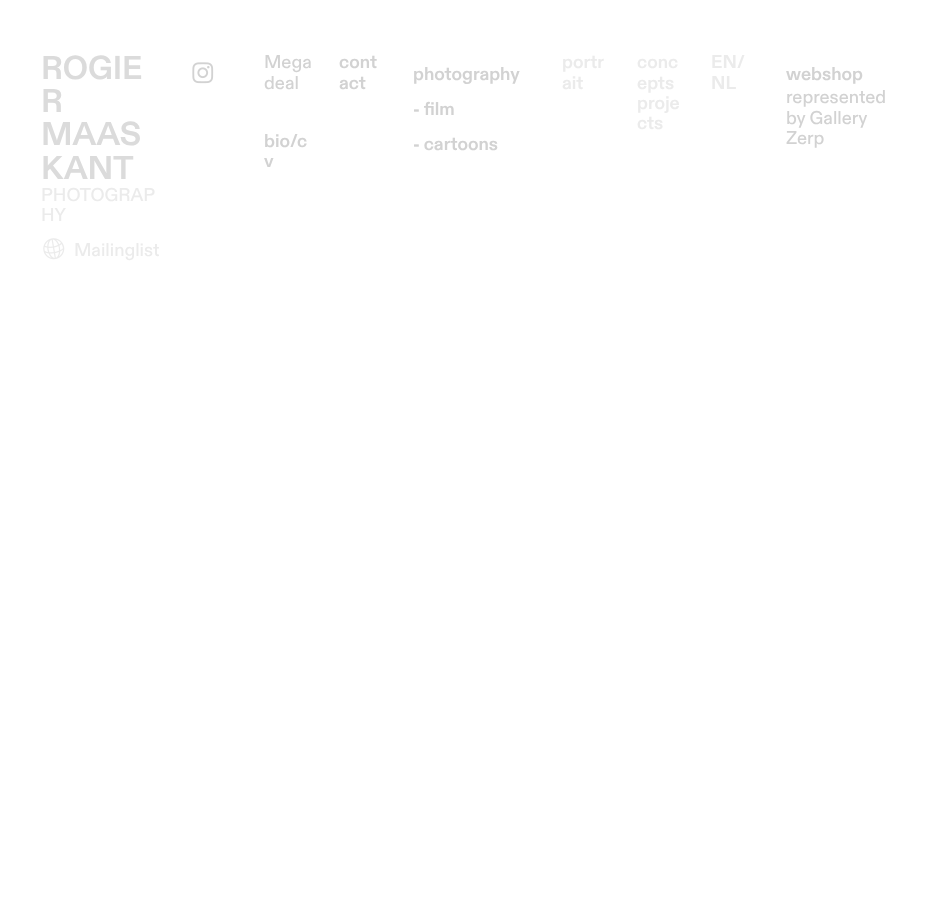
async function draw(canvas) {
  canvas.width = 949
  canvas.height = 922
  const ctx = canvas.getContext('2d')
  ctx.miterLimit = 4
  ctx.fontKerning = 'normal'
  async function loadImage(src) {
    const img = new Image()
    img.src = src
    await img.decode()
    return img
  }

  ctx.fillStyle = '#fff'
  ctx.fillRect(0, 0, 949, 922)
  ctx.font = 'bold 33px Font'
  ctx.fillStyle = '#dbdbdb'
  ctx.fillText('ROGIE', 41, 79)
  ctx.fillText('R', 41, 112)
  ctx.fillText('MAAS', 41, 145)
  ctx.fillText('KANT', 41, 179)
  ctx.font = '500 18.5px Font'
  ctx.fillStyle = '#ebebeb'
  ctx.fillText('PHOTOGRAP', 41, 201)
  ctx.fillText('HY', 41, 221)
  ctx.drawImage(await loadImage('image0.png'), 43, 238, 22, 22)
  ctx.fillText('Mailinglist', 74, 256)
  ctx.drawImage(await loadImage('image1.png'), 192, 62, 22, 22)
  ctx.fillStyle = '#d2d2d2'
  ctx.fillText('Mega', 264, 68)
  ctx.fillText('deal', 264, 89)
  ctx.font = 'bold 18.5px Font'
  ctx.fillText('bio/c', 264, 147)
  ctx.fillText('v', 264, 167)
  ctx.fillText('cont', 339, 68)
  ctx.fillText('act', 339, 89)
  ctx.fillText('photography', 413, 80)
  ctx.fillText('- film', 413, 115)
  ctx.fillText('- cartoons', 413, 150)
  ctx.fillStyle = '#ebebeb'
  ctx.fillText('portr', 562, 68)
  ctx.fillText('ait', 562, 89)
  ctx.fillText('conc', 637, 68)
  ctx.fillText('epts', 637, 89)
  ctx.fillText('proje', 637, 109)
  ctx.fillText('cts', 637, 129)
  ctx.fillText('EN', 711, 68)
  ctx.fillText('/', 737, 68)
  ctx.fillText('NL', 711, 89)
  ctx.fillStyle = '#d2d2d2'
  ctx.fillText('webshop', 786, 80)
  ctx.font = '500 18.5px Font'
  ctx.fillText('represented', 786, 103)
  ctx.fillText('by Gallery', 786, 124)
  ctx.fillText('Zerp', 786, 144)
}

draw(document.querySelector('canvas'))
